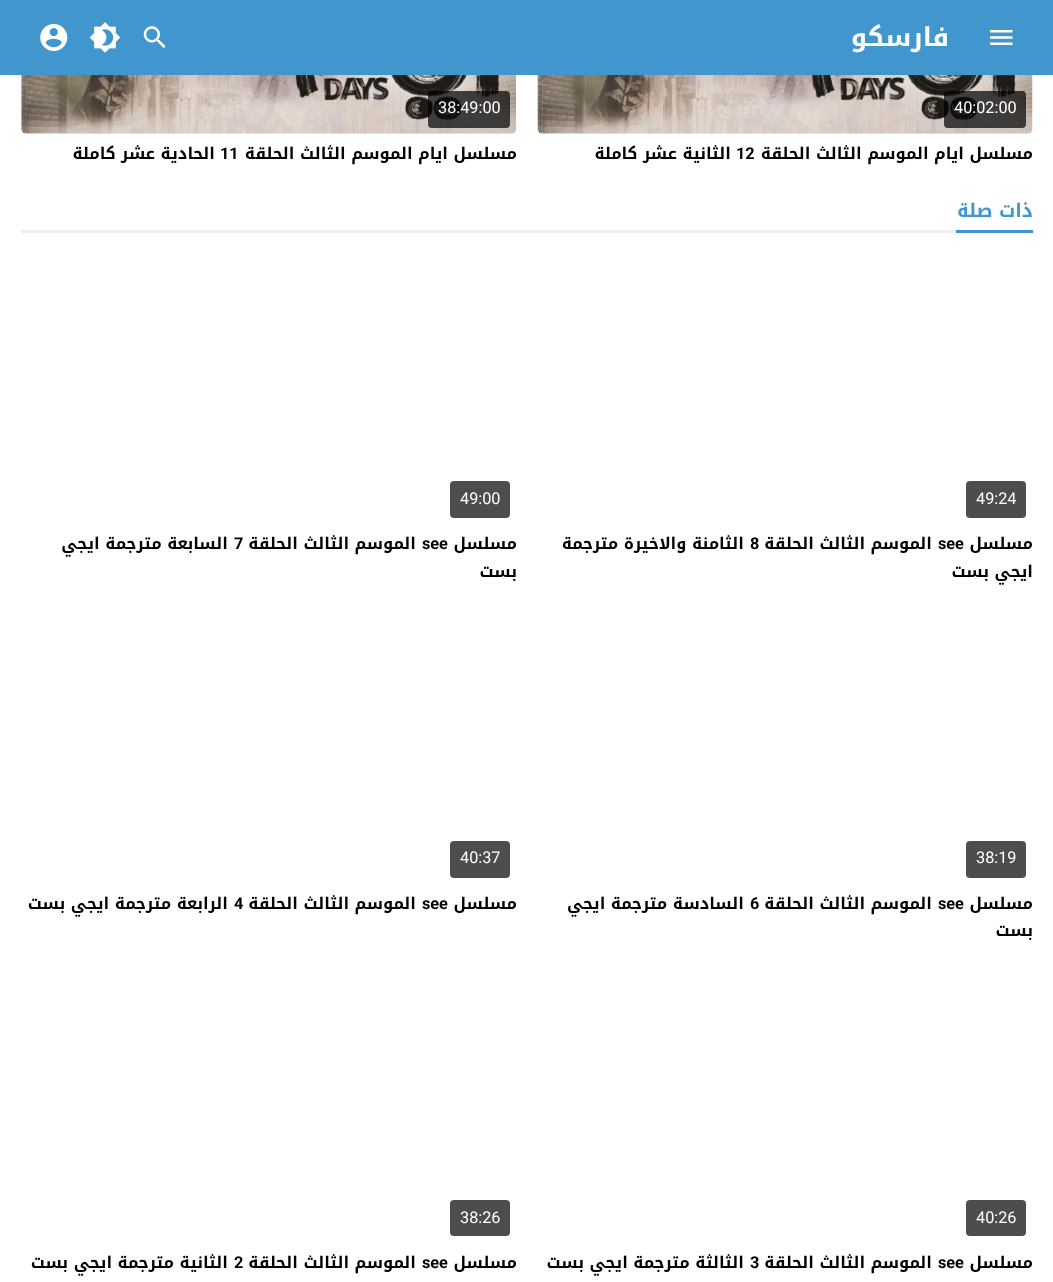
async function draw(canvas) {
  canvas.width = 1053
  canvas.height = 1282
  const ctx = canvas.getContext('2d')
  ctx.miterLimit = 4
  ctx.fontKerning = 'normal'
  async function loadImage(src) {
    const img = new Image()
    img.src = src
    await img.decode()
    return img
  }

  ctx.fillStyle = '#fff'
  ctx.fillRect(0, 0, 1053, 1282)
  ctx.drawImage(await loadImage('image4.png'), 537, 75, 496, 59)
  ctx.drawImage(await loadImage('image5.png'), 21, 75, 496, 59)
  ctx.fillStyle = '#999'
  ctx.filter = 'blur(3px)'
  ctx.beginPath()
  ctx.rect(6, 9, 1042, 62)
  ctx.fill()
  ctx.filter = 'none'
  ctx.fillStyle = '#4296ce'
  ctx.fillRect(0, 0, 1053, 75)
  ctx.drawImage(await loadImage('image0.png'), 990, 30, 23, 15)
  ctx.direction = 'rtl'
  ctx.font = 'bold 26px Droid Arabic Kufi'
  ctx.fillStyle = '#fff'
  ctx.fillText('فارسكو', 949, 46)
  ctx.drawImage(await loadImage('image1.png'), 143, 26, 23, 22)
  ctx.drawImage(await loadImage('image2.png'), 89, 22, 32, 31)
  ctx.drawImage(await loadImage('image3.png'), 40, 24, 28, 27)
  ctx.fillStyle = '#000000b3'
  ctx.beginPath()
  ctx.roundRect(944, 91, 82, 37, 4)
  ctx.fill()
  ctx.direction = 'ltr'
  ctx.font = '16.25px Roboto'
  ctx.fillStyle = '#fff'
  ctx.fillText('40:02:00', 954, 113)
  ctx.direction = 'rtl'
  ctx.font = 'bold 16.25px Droid Arabic Kufi'
  ctx.fillStyle = '#000'
  ctx.fillText('مسلسل ايام الموسم الثالث الحلقة', 1033, 159)
  ctx.direction = 'ltr'
  ctx.font = 'bold 16.25px Roboto'
  ctx.fillText('12', 736, 159)
  ctx.direction = 'rtl'
  ctx.font = 'bold 16.25px Droid Arabic Kufi'
  ctx.fillText('الثانية عشر كاملة', 731, 159)
  ctx.fillStyle = '#000000b3'
  ctx.beginPath()
  ctx.roundRect(428, 91, 82, 37, 4)
  ctx.fill()
  ctx.direction = 'ltr'
  ctx.font = '16.25px Roboto'
  ctx.fillStyle = '#fff'
  ctx.fillText('38:49:00', 438, 113)
  ctx.direction = 'rtl'
  ctx.font = 'bold 16.25px Droid Arabic Kufi'
  ctx.fillStyle = '#000'
  ctx.fillText('مسلسل ايام الموسم الثالث الحلقة', 517, 159)
  ctx.direction = 'ltr'
  ctx.font = 'bold 16.25px Roboto'
  ctx.fillText('11', 220, 159)
  ctx.direction = 'rtl'
  ctx.font = 'bold 16.25px Droid Arabic Kufi'
  ctx.fillText('الحادية عشر كاملة', 215, 159)
  ctx.fillStyle = '#eee'
  ctx.fillRect(21, 230, 935, 3)
  ctx.fillStyle = '#4296ce'
  ctx.fillRect(956, 230, 77, 3)
  ctx.font = 'bold 18.75px Droid Arabic Kufi'
  ctx.fillText('ذات صلة', 1033, 217)
  ctx.fillStyle = '#4d4d4d'
  ctx.beginPath()
  ctx.roundRect(966, 481, 60, 37, 4)
  ctx.fill()
  ctx.direction = 'ltr'
  ctx.font = '16.25px Roboto'
  ctx.fillStyle = '#fff'
  ctx.fillText('49:24', 976, 504)
  ctx.direction = 'rtl'
  ctx.font = 'bold 16.25px Droid Arabic Kufi'
  ctx.fillStyle = '#000'
  ctx.fillText('مسلسل', 1033, 549)
  ctx.direction = 'ltr'
  ctx.font = 'bold 16.25px Roboto'
  ctx.fillText('see', 938, 549)
  ctx.direction = 'rtl'
  ctx.font = 'bold 16.25px Droid Arabic Kufi'
  ctx.fillText('الموسم الثالث الحلقة', 932, 549)
  ctx.direction = 'ltr'
  ctx.font = 'bold 16.25px Roboto'
  ctx.fillText('8', 750, 549)
  ctx.direction = 'rtl'
  ctx.font = 'bold 16.25px Droid Arabic Kufi'
  ctx.fillText('الثامنة والاخيرة مترجمة', 744, 549)
  ctx.fillText('ايجي بست', 1033, 577)
  ctx.fillStyle = '#4d4d4d'
  ctx.beginPath()
  ctx.roundRect(450, 481, 60, 37, 4)
  ctx.fill()
  ctx.direction = 'ltr'
  ctx.font = '16.25px Roboto'
  ctx.fillStyle = '#fff'
  ctx.fillText('49:00', 460, 504)
  ctx.direction = 'rtl'
  ctx.font = 'bold 16.25px Droid Arabic Kufi'
  ctx.fillStyle = '#000'
  ctx.fillText('مسلسل', 517, 549)
  ctx.direction = 'ltr'
  ctx.font = 'bold 16.25px Roboto'
  ctx.fillText('see', 422, 549)
  ctx.direction = 'rtl'
  ctx.font = 'bold 16.25px Droid Arabic Kufi'
  ctx.fillText('الموسم الثالث الحلقة', 416, 549)
  ctx.direction = 'ltr'
  ctx.font = 'bold 16.25px Roboto'
  ctx.fillText('7', 234, 549)
  ctx.direction = 'rtl'
  ctx.font = 'bold 16.25px Droid Arabic Kufi'
  ctx.fillText('السابعة مترجمة ايجي', 228, 549)
  ctx.fillText('بست', 517, 577)
  ctx.fillStyle = '#4d4d4d'
  ctx.beginPath()
  ctx.roundRect(966, 841, 60, 37, 4)
  ctx.fill()
  ctx.direction = 'ltr'
  ctx.font = '16.25px Roboto'
  ctx.fillStyle = '#fff'
  ctx.fillText('38:19', 976, 863)
  ctx.direction = 'rtl'
  ctx.font = 'bold 16.25px Droid Arabic Kufi'
  ctx.fillStyle = '#000'
  ctx.fillText('مسلسل', 1033, 909)
  ctx.direction = 'ltr'
  ctx.font = 'bold 16.25px Roboto'
  ctx.fillText('see', 938, 909)
  ctx.direction = 'rtl'
  ctx.font = 'bold 16.25px Droid Arabic Kufi'
  ctx.fillText('الموسم الثالث الحلقة', 932, 909)
  ctx.direction = 'ltr'
  ctx.font = 'bold 16.25px Roboto'
  ctx.fillText('6', 750, 909)
  ctx.direction = 'rtl'
  ctx.font = 'bold 16.25px Droid Arabic Kufi'
  ctx.fillText('السادسة مترجمة ايجي', 744, 909)
  ctx.fillText('بست', 1033, 936)
  ctx.fillStyle = '#4d4d4d'
  ctx.beginPath()
  ctx.roundRect(450, 841, 60, 37, 4)
  ctx.fill()
  ctx.direction = 'ltr'
  ctx.font = '16.25px Roboto'
  ctx.fillStyle = '#fff'
  ctx.fillText('40:37', 460, 863)
  ctx.direction = 'rtl'
  ctx.font = 'bold 16.25px Droid Arabic Kufi'
  ctx.fillStyle = '#000'
  ctx.fillText('مسلسل', 517, 909)
  ctx.direction = 'ltr'
  ctx.font = 'bold 16.25px Roboto'
  ctx.fillText('see', 422, 909)
  ctx.direction = 'rtl'
  ctx.font = 'bold 16.25px Droid Arabic Kufi'
  ctx.fillText('الموسم الثالث الحلقة', 416, 909)
  ctx.direction = 'ltr'
  ctx.font = 'bold 16.25px Roboto'
  ctx.fillText('4', 234, 909)
  ctx.direction = 'rtl'
  ctx.font = 'bold 16.25px Droid Arabic Kufi'
  ctx.fillText('الرابعة مترجمة ايجي بست', 228, 909)
  ctx.fillStyle = '#4d4d4d'
  ctx.beginPath()
  ctx.roundRect(966, 1200, 60, 36, 4)
  ctx.fill()
  ctx.direction = 'ltr'
  ctx.font = '16.25px Roboto'
  ctx.fillStyle = '#fff'
  ctx.fillText('40:26', 976, 1223)
  ctx.direction = 'rtl'
  ctx.font = 'bold 16.25px Droid Arabic Kufi'
  ctx.fillStyle = '#000'
  ctx.fillText('مسلسل', 1033, 1268)
  ctx.direction = 'ltr'
  ctx.font = 'bold 16.25px Roboto'
  ctx.fillText('see', 938, 1268)
  ctx.direction = 'rtl'
  ctx.font = 'bold 16.25px Droid Arabic Kufi'
  ctx.fillText('الموسم الثالث الحلقة', 932, 1268)
  ctx.direction = 'ltr'
  ctx.font = 'bold 16.25px Roboto'
  ctx.fillText('3', 750, 1268)
  ctx.direction = 'rtl'
  ctx.font = 'bold 16.25px Droid Arabic Kufi'
  ctx.fillText('الثالثة مترجمة ايجي بست', 744, 1268)
  ctx.fillStyle = '#4d4d4d'
  ctx.beginPath()
  ctx.roundRect(450, 1200, 60, 36, 4)
  ctx.fill()
  ctx.direction = 'ltr'
  ctx.font = '16.25px Roboto'
  ctx.fillStyle = '#fff'
  ctx.fillText('38:26', 460, 1223)
  ctx.direction = 'rtl'
  ctx.font = 'bold 16.25px Droid Arabic Kufi'
  ctx.fillStyle = '#000'
  ctx.fillText('مسلسل', 517, 1268)
  ctx.direction = 'ltr'
  ctx.font = 'bold 16.25px Roboto'
  ctx.fillText('see', 422, 1268)
  ctx.direction = 'rtl'
  ctx.font = 'bold 16.25px Droid Arabic Kufi'
  ctx.fillText('الموسم الثالث الحلقة', 416, 1268)
  ctx.direction = 'ltr'
  ctx.font = 'bold 16.25px Roboto'
  ctx.fillText('2', 234, 1268)
  ctx.direction = 'rtl'
  ctx.font = 'bold 16.25px Droid Arabic Kufi'
  ctx.fillText('الثانية مترجمة ايجي بست', 228, 1268)
}

draw(document.querySelector('canvas'))
